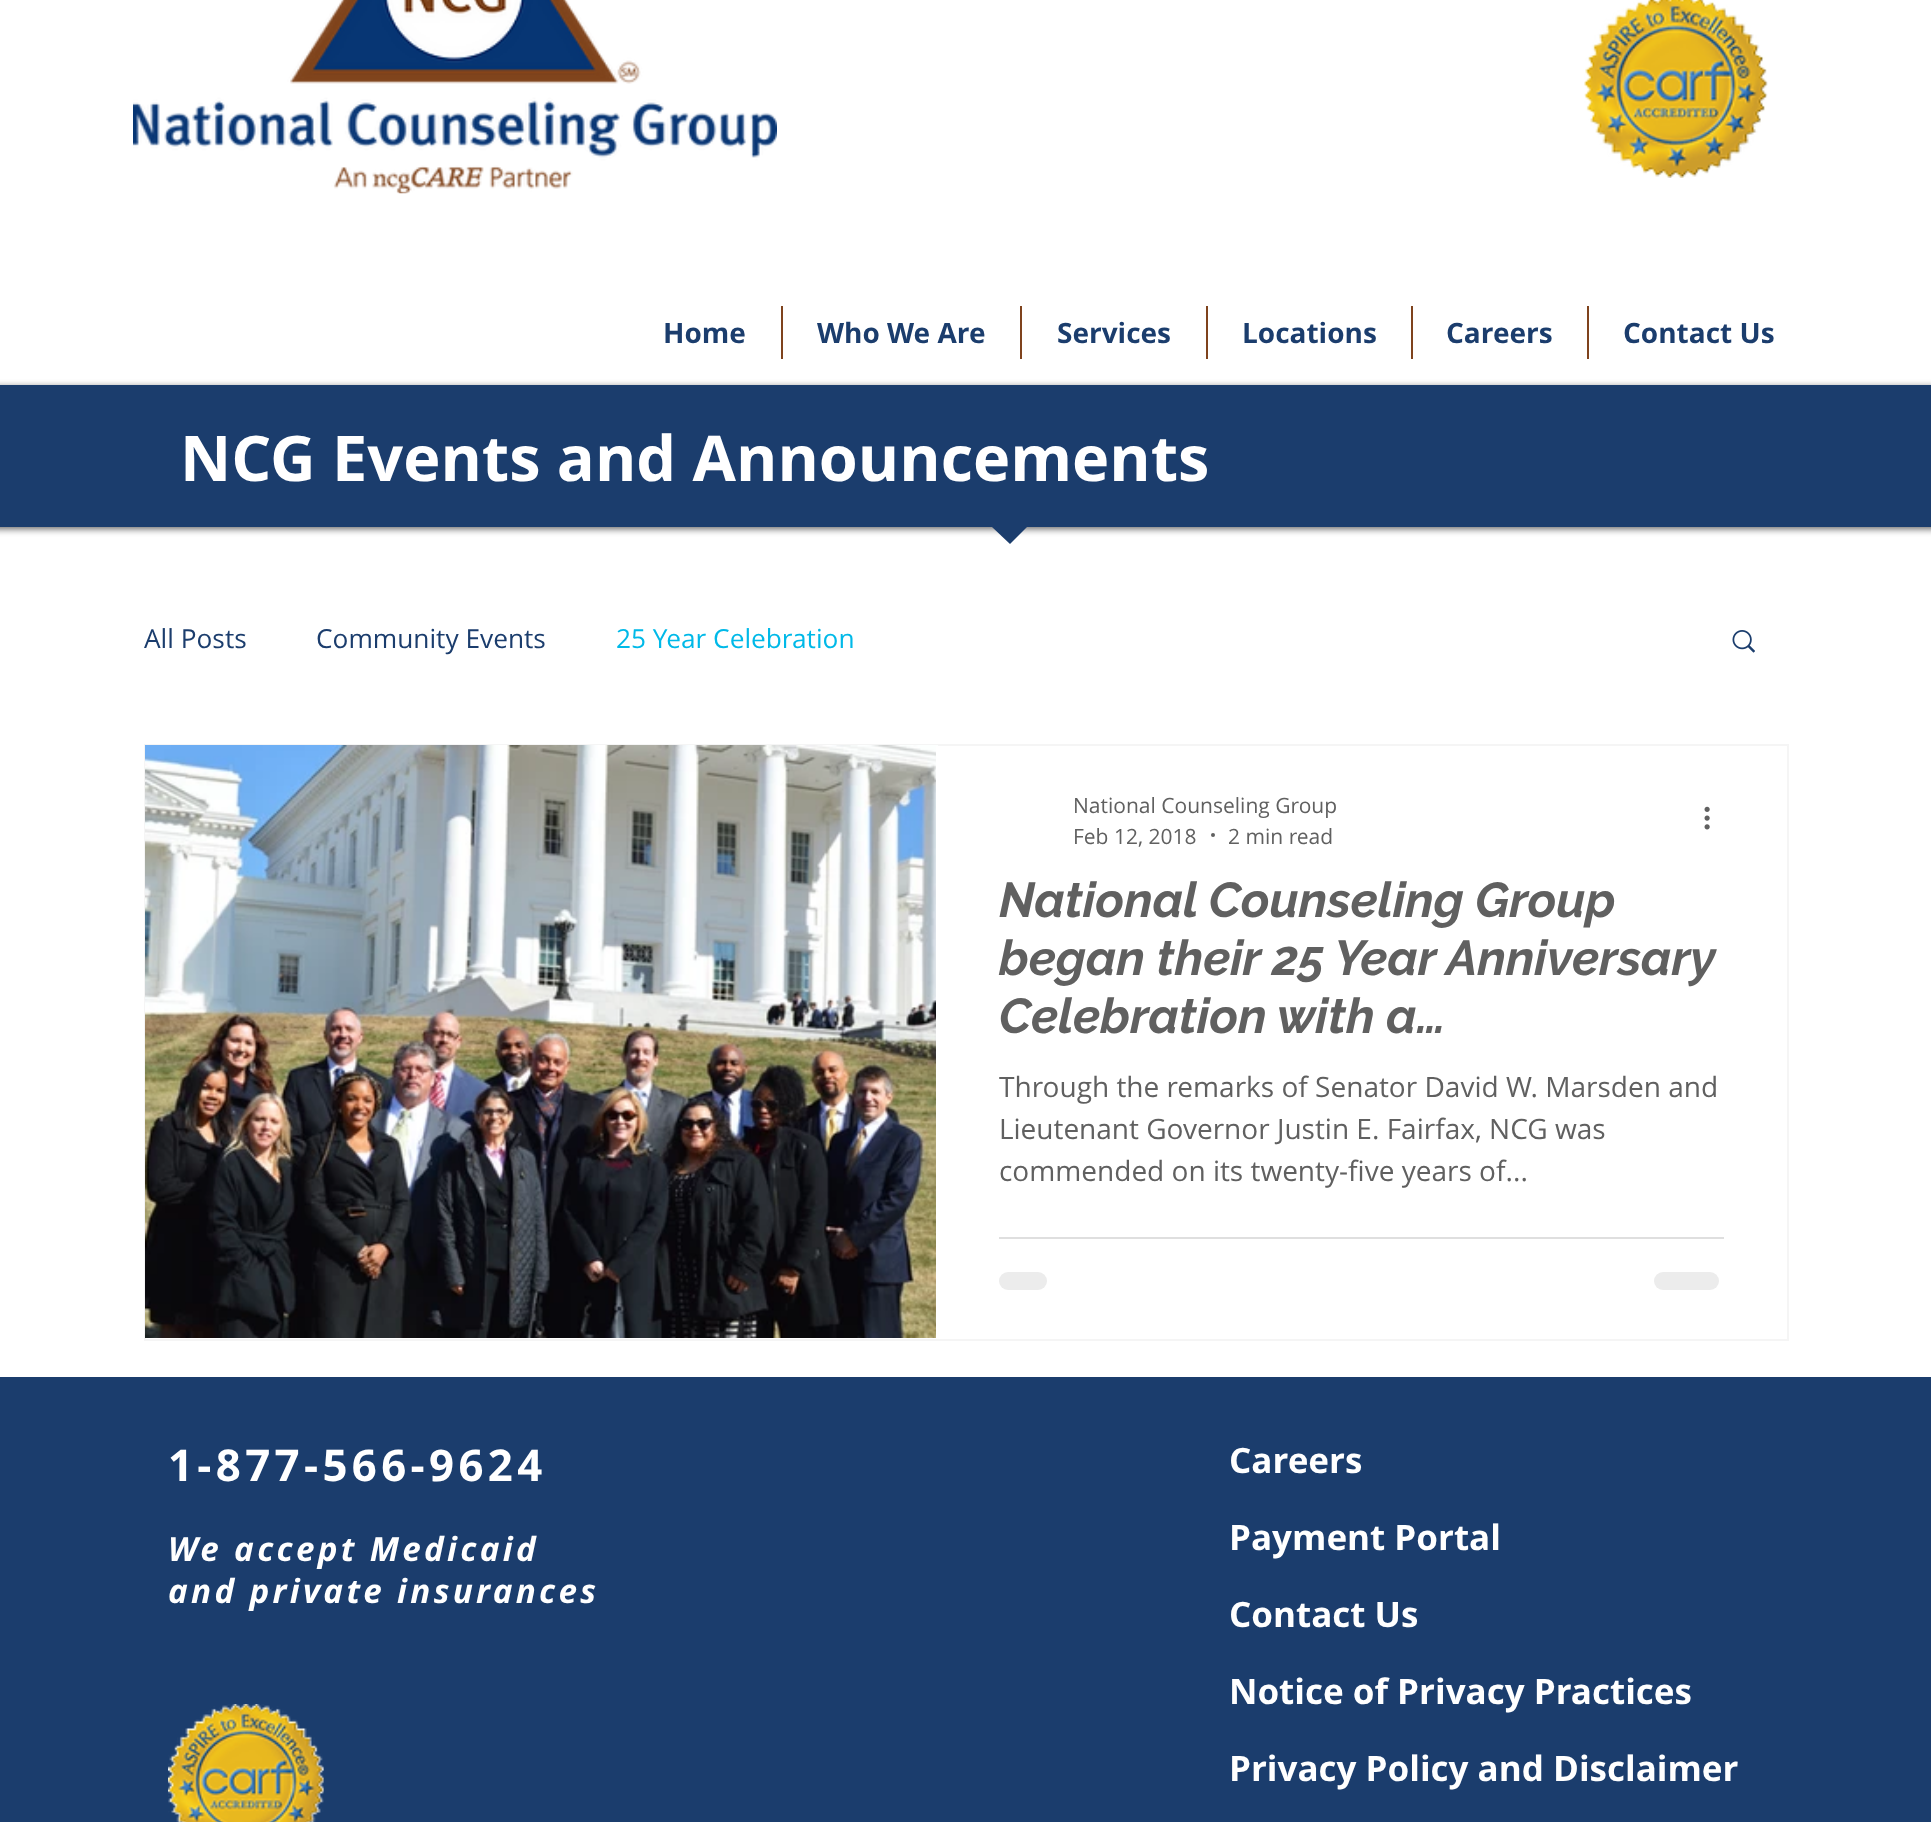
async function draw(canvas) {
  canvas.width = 1931
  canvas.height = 1822
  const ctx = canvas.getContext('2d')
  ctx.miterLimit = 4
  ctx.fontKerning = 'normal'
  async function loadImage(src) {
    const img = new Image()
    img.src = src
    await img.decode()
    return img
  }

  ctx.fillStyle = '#fff'
  ctx.fillRect(0, 0, 1931, 1822)
  ctx.drawImage(await loadImage('image0.png'), 133, 0, 644, 194)
  ctx.drawImage(await loadImage('image1.png'), 1584, 0, 184, 178)
  ctx.font = 'bold 28px Open Sans'
  ctx.fillStyle = '#1b3d6d'
  ctx.fillText('Home', 663, 343)
  ctx.fillStyle = '#7f431d'
  ctx.fillRect(781, 306, 2, 53)
  ctx.fillStyle = '#1b3d6d'
  ctx.fillText('Who We Are', 817, 343)
  ctx.fillStyle = '#7f431d'
  ctx.fillRect(1020, 306, 2, 53)
  ctx.fillStyle = '#1b3d6d'
  ctx.fillText('Services', 1057, 343)
  ctx.fillStyle = '#7f431d'
  ctx.fillRect(1206, 306, 2, 53)
  ctx.fillStyle = '#1b3d6d'
  ctx.fillText('Locations', 1242, 343)
  ctx.fillStyle = '#7f431d'
  ctx.fillRect(1411, 306, 2, 53)
  ctx.fillStyle = '#1b3d6d'
  ctx.fillText('Careers', 1446, 343)
  ctx.fillStyle = '#7f431d'
  ctx.fillRect(1587, 306, 2, 53)
  ctx.fillStyle = '#1b3d6d'
  ctx.fillText('Contact Us', 1623, 343)
  ctx.fillStyle = '#00000099'
  ctx.filter = 'blur(3.5px)'
  ctx.beginPath()
  ctx.rect(-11, 387, 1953, 142)
  ctx.fill()
  ctx.filter = 'none'
  ctx.fillStyle = '#1b3d6d'
  ctx.fillRect(0, 385, 1931, 142)
  ctx.font = 'bold 63px Open Sans'
  ctx.fillStyle = '#fff'
  ctx.fillText('NCG Events and Announcements', 180, 481)
  ctx.fillStyle = '#1b3d6d'
  ctx.beginPath()
  ctx.moveTo(992, 527)
  ctx.lineTo(1027, 527)
  ctx.lineTo(1010, 544)
  ctx.closePath()
  ctx.fill()
  ctx.font = '26.25px Open Sans'
  ctx.fillText('All Posts', 144, 648)
  ctx.fillText('Community Events', 316, 648)
  ctx.fillStyle = '#00b9e8'
  ctx.fillText('25 Year Celebration', 616, 648)
  ctx.drawImage(await loadImage('image2.png'), 1732, 630, 23, 23)
  ctx.strokeStyle = '#f5f5f5'
  ctx.lineWidth = 2
  ctx.strokeRect(145, 745, 1643, 595)
  ctx.drawImage(await loadImage('image3.png'), 145, 745, 793, 593)
  ctx.fillStyle = '#fff'
  ctx.fillRect(936, 746, 2, 592)
  ctx.font = '21px Open Sans'
  ctx.fillStyle = '#606060'
  ctx.fillText('National Counseling Group', 1073, 813)
  ctx.fillText('Feb 12, 2018', 1073, 844)
  ctx.beginPath()
  ctx.arc(1213, 835, 2, 0, 2 * Math.PI)
  ctx.fill()
  ctx.fillText('2 min read', 1228, 844)
  ctx.drawImage(await loadImage('image4.png'), 1704, 806, 6, 24)
  ctx.font = 'italic bold 49px Raleway'
  ctx.fillText('National Counseling Group', 999, 917)
  ctx.fillText('began their 25 Year Anniversary', 999, 975)
  ctx.fillText('Celebration with a…', 999, 1033)
  ctx.font = '28px Open Sans'
  ctx.fillText('Through the remarks of Senator David W. Marsden and', 999, 1097)
  ctx.fillText('Lieutenant Governor Justin E. Fairfax, NCG was', 999, 1139)
  ctx.fillText('commended on its twenty-five years of...', 999, 1181)
  ctx.fillStyle = '#dfdfdf'
  ctx.fillRect(999, 1237, 725, 2)
  ctx.fillStyle = '#ececec'
  ctx.beginPath()
  ctx.roundRect(999, 1272, 48, 18, 9)
  ctx.fill()
  ctx.beginPath()
  ctx.roundRect(1654, 1272, 65, 18, 9)
  ctx.fill()
  ctx.fillStyle = '#1b3d6d'
  ctx.fillRect(0, 1377, 1931, 445)
  ctx.letterSpacing = '4.4px'
  ctx.font = 'bold 43.75px Open Sans'
  ctx.fillStyle = '#fff'
  ctx.fillText('1-877-566-9624', 168, 1481)
  ctx.letterSpacing = '0px'
  ctx.font = 'bold 35px Open Sans'
  ctx.fillText('Careers', 1229, 1473)
  ctx.fillText('Payment Portal', 1229, 1550)
  ctx.fillText('Contact Us', 1229, 1627)
  ctx.fillText('Notice of Privacy Practices', 1229, 1704)
  ctx.fillText('Privacy Policy and Disclaimer', 1229, 1781)
  ctx.letterSpacing = '3.3px'
  ctx.font = 'italic bold 33.25px Open Sans'
  ctx.fillText('We accept Medicaid', 168, 1561)
  ctx.fillText('and private insurances', 168, 1603)
  ctx.drawImage(await loadImage('image5.png'), 168, 1704, 156, 118)
}

draw(document.querySelector('canvas'))
